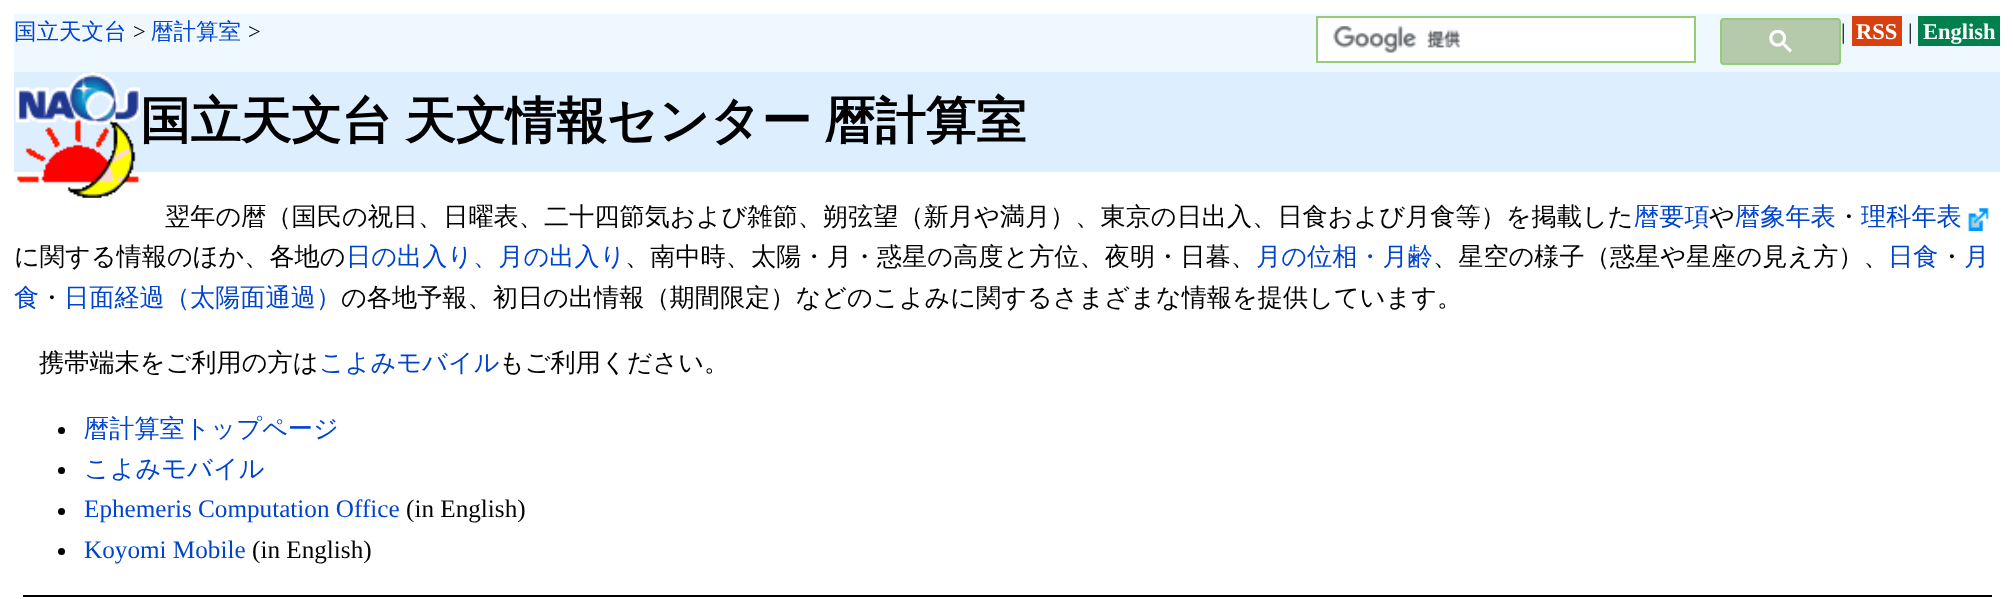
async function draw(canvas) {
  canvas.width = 2013
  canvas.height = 599
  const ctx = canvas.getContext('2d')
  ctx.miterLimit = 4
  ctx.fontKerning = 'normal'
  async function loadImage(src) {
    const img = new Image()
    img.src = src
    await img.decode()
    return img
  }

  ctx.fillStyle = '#fff'
  ctx.fillRect(0, 0, 2013, 599)
  ctx.fillStyle = '#f0f8ff'
  ctx.fillRect(14, 14, 1986, 58)
  ctx.font = '500 22.5px WenQuanYi Zen Hei'
  ctx.fillStyle = '#04c'
  ctx.fillText('国立天文台', 14, 39)
  ctx.font = '22.5px Liberation Serif'
  ctx.fillStyle = '#000'
  ctx.fillText('>', 133, 39)
  ctx.font = '500 22.5px WenQuanYi Zen Hei'
  ctx.fillStyle = '#04c'
  ctx.fillText('暦計算室', 151, 39)
  ctx.font = '22.5px Liberation Serif'
  ctx.fillStyle = '#000'
  ctx.fillText('>', 248, 39)
  ctx.fillStyle = '#fff'
  ctx.beginPath()
  ctx.rect(1317, 17, 378, 45)
  ctx.fill()
  ctx.strokeStyle = '#94cc7a'
  ctx.lineWidth = 2
  ctx.stroke()
  ctx.drawImage(await loadImage('image0.png'), 1333, 26, 128, 27)
  ctx.fillStyle = '#b5c9ab'
  ctx.beginPath()
  ctx.roundRect(1721, 19, 119, 45, 3)
  ctx.fill()
  ctx.stroke()
  ctx.drawImage(await loadImage('image1.png'), 1769, 30, 23, 23)
  ctx.fillStyle = '#000'
  ctx.fillText('|', 1841, 39)
  ctx.fillStyle = '#d84010'
  ctx.fillRect(1852, 16, 50, 30)
  ctx.font = 'bold 22.5px Liberation Serif'
  ctx.fillStyle = '#fff'
  ctx.fillText('RSS', 1856, 39)
  ctx.font = '22.5px Liberation Serif'
  ctx.fillStyle = '#000'
  ctx.fillText('|', 1908, 39)
  ctx.fillStyle = '#01804e'
  ctx.fillRect(1918, 16, 82, 30)
  ctx.font = 'bold 22.5px Liberation Serif'
  ctx.fillStyle = '#fff'
  ctx.fillText('English', 1923, 39)
  ctx.fillStyle = '#def'
  ctx.fillRect(14, 72, 1986, 100)
  ctx.drawImage(await loadImage('image2.png'), 15, 72, 125, 126)
  ctx.wordSpacing = '-2px'
  ctx.font = 'bold 50.4px WenQuanYi Zen Hei'
  ctx.fillStyle = '#000'
  ctx.fillText('国立天文台 天文情報センター 暦計算室', 140, 138)
  ctx.wordSpacing = '0px'
  ctx.font = '500 25.2px WenQuanYi Zen Hei'
  ctx.fillText('翌年の暦（国民の祝日、日曜表、二十四節気および雑節、朔弦望（新月や満月）、東京の日出入、日食および月食等）を掲載した', 165, 225)
  ctx.fillStyle = '#04c'
  ctx.fillText('暦要項', 1634, 225)
  ctx.fillStyle = '#000'
  ctx.fillText('や', 1709, 225)
  ctx.fillStyle = '#04c'
  ctx.fillText('暦象年表', 1735, 225)
  ctx.fillStyle = '#000'
  ctx.fillText('・', 1836, 225)
  ctx.fillStyle = '#04c'
  ctx.fillText('理科年表', 1861, 225)
  ctx.drawImage(await loadImage('image3.png'), 1968, 208, 21, 23)
  ctx.fillStyle = '#000'
  ctx.fillText('に関する情報のほか、各地の', 14, 265)
  ctx.fillStyle = '#04c'
  ctx.fillText('日の出入り、月の出入り', 346, 265)
  ctx.fillStyle = '#000'
  ctx.fillText('、南中時、太陽・月・惑星の高度と方位、夜明・日暮、', 625, 265)
  ctx.fillStyle = '#04c'
  ctx.fillText('月の位相・月齢', 1256, 265)
  ctx.fillStyle = '#000'
  ctx.fillText('、星空の様子（惑星や星座の見え方）、', 1433, 265)
  ctx.fillStyle = '#04c'
  ctx.fillText('日食', 1888, 265)
  ctx.fillStyle = '#000'
  ctx.fillText('・', 1939, 265)
  ctx.fillStyle = '#04c'
  ctx.fillText('月', 1964, 265)
  ctx.fillText('食', 14, 306)
  ctx.fillStyle = '#000'
  ctx.fillText('・', 39, 306)
  ctx.fillStyle = '#04c'
  ctx.fillText('日面経過（太陽面通過）', 64, 306)
  ctx.fillStyle = '#000'
  ctx.fillText('の各地予報、初日の出情報（期間限定）などのこよみに関するさまざまな情報を提供しています。', 341, 306)
  ctx.fillText('携帯端末をご利用の方は', 39, 371)
  ctx.fillStyle = '#04c'
  ctx.fillText('こよみモバイル', 319, 371)
  ctx.fillStyle = '#000'
  ctx.fillText('もご利用ください。', 499, 371)
  ctx.beginPath()
  ctx.arc(61.5, 430.5, 3.5, 0, 2 * Math.PI)
  ctx.fill()
  ctx.fillStyle = '#04c'
  ctx.fillText('暦計算室トップページ', 84, 437)
  ctx.fillStyle = '#000'
  ctx.beginPath()
  ctx.arc(61.5, 470.5, 3.5, 0, 2 * Math.PI)
  ctx.fill()
  ctx.fillStyle = '#04c'
  ctx.fillText('こよみモバイル', 84, 477)
  ctx.fillStyle = '#000'
  ctx.beginPath()
  ctx.arc(61.5, 511.5, 3.5, 0, 2 * Math.PI)
  ctx.fill()
  ctx.font = '25.2px Liberation Serif'
  ctx.fillStyle = '#04c'
  ctx.fillText('Ephemeris Computation Office', 84, 517)
  ctx.fillStyle = '#000'
  ctx.fillText('(in English)', 406, 517)
  ctx.beginPath()
  ctx.arc(61.5, 551.5, 3.5, 0, 2 * Math.PI)
  ctx.fill()
  ctx.fillStyle = '#04c'
  ctx.fillText('Koyomi Mobile', 84, 558)
  ctx.fillStyle = '#000'
  ctx.fillText('(in English)', 252, 558)
  ctx.fillRect(23, 595, 1969, 2)
}

draw(document.querySelector('canvas'))
